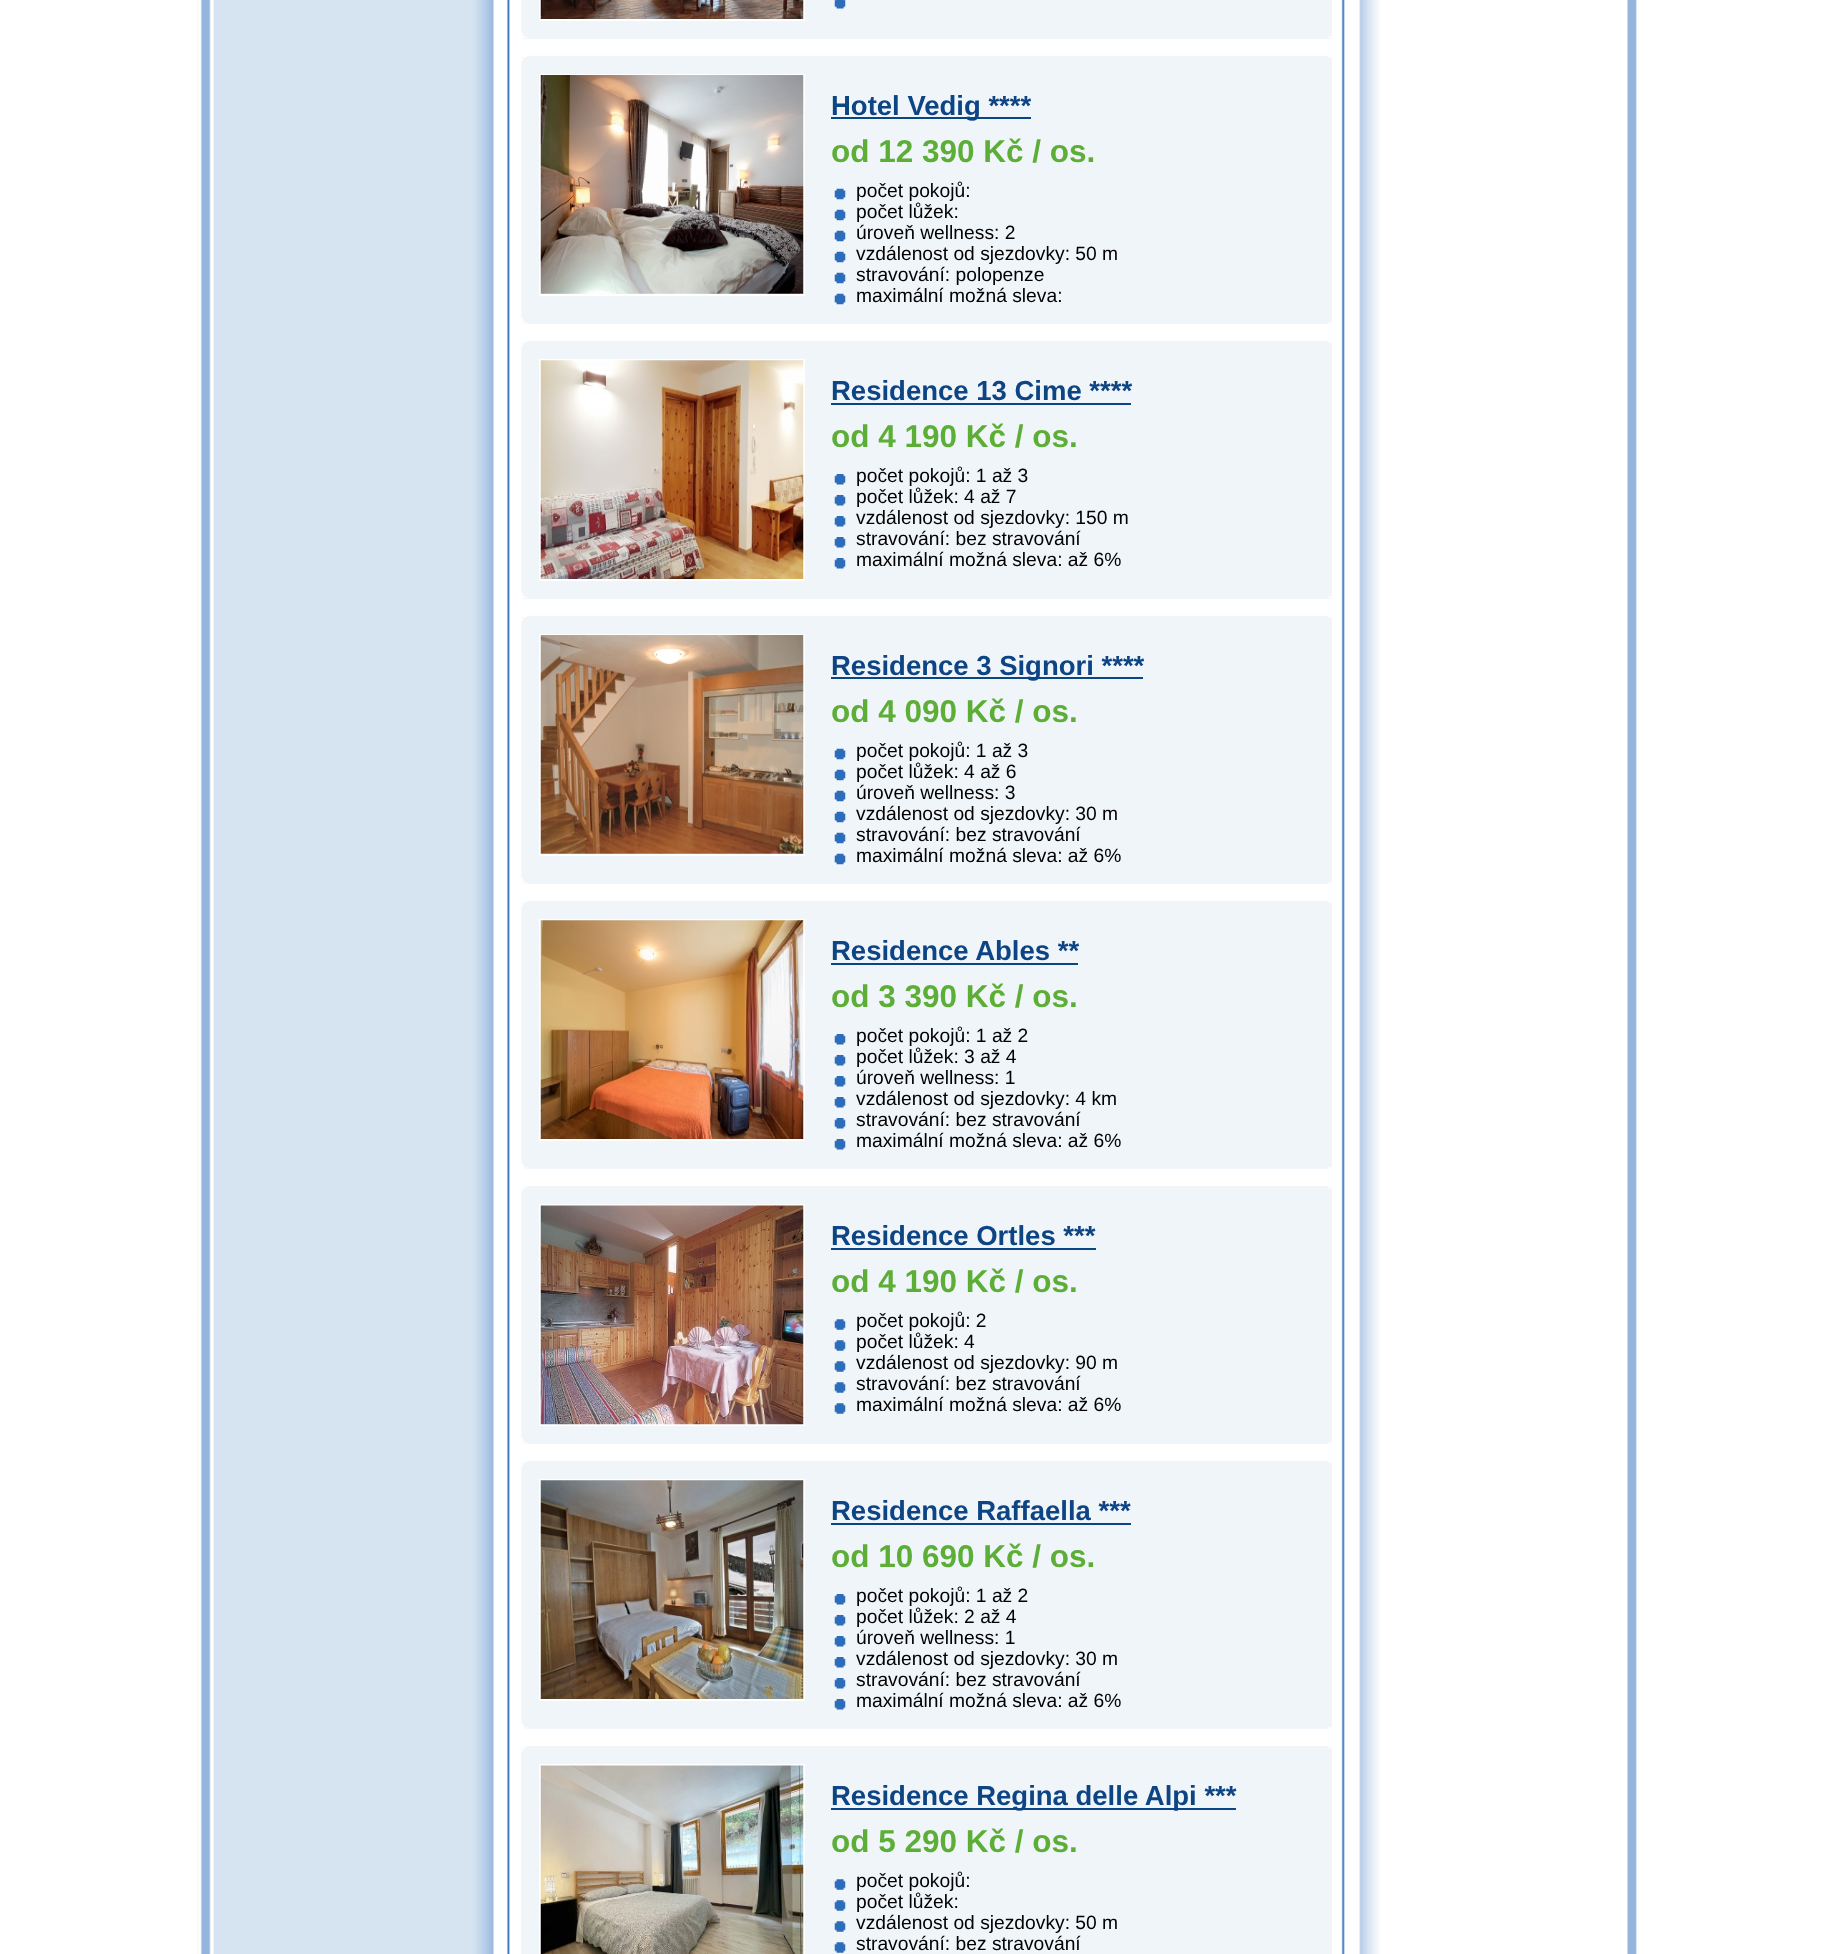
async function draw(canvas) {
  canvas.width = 1836
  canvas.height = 1954
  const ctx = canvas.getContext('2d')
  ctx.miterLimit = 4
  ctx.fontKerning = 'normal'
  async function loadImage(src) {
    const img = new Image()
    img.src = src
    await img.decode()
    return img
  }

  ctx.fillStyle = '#fff'
  ctx.fillRect(0, 0, 1836, 1954)
  ctx.drawImage(await loadImage('image0.png'), 197, 0, 1440, 1954)
  ctx.drawImage(await loadImage('image1.png'), 1343, 0, 2, 1954)
  ctx.fillStyle = '#f0f5fa'
  ctx.fillRect(522, 0, 810, 39)
  ctx.drawImage(await loadImage('image2.png'), 521, 0, 811, 38)
  ctx.strokeStyle = '#fff'
  ctx.lineWidth = 2
  ctx.strokeRect(540, -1, 264, 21)
  ctx.drawImage(await loadImage('image3.png'), 540, 0, 264, 19)
  ctx.drawImage(await loadImage('image4.png'), 834, 0, 12, 9)
  ctx.fillRect(522, 56, 810, 268)
  ctx.drawImage(await loadImage('image5.png'), 521, 55, 811, 269)
  ctx.drawImage(await loadImage('image6.png'), 521, 56, 811, 5)
  ctx.strokeRect(540, 75, 264, 220)
  ctx.drawImage(await loadImage('image7.png'), 540, 75, 264, 219)
  ctx.fillStyle = '#0d4484'
  ctx.fillRect(831, 117, 200, 2)
  ctx.font = 'bold 27.5px Liberation Sans'
  ctx.fillText('Hotel Vedig ****', 831, 115)
  ctx.font = 'bold 31.5px Liberation Sans'
  ctx.fillStyle = '#5dae37'
  ctx.fillText('od 12 390 Kč / os.', 831, 162)
  ctx.drawImage(await loadImage('image8.png'), 834, 188, 12, 12)
  ctx.font = '19.25px Liberation Sans'
  ctx.fillStyle = '#000'
  ctx.fillText('počet pokojů:', 856, 197)
  ctx.drawImage(await loadImage('image8.png'), 834, 209, 12, 12)
  ctx.fillText('počet lůžek:', 856, 218)
  ctx.drawImage(await loadImage('image8.png'), 834, 230, 12, 12)
  ctx.fillText('úroveň wellness: 2', 856, 239)
  ctx.drawImage(await loadImage('image8.png'), 834, 251, 12, 12)
  ctx.fillText('vzdálenost od sjezdovky: 50 m', 856, 260)
  ctx.drawImage(await loadImage('image8.png'), 834, 272, 12, 12)
  ctx.fillText('stravování: polopenze', 856, 281)
  ctx.drawImage(await loadImage('image8.png'), 834, 293, 12, 12)
  ctx.fillText('maximální možná sleva:', 856, 302)
  ctx.fillStyle = '#f0f5fa'
  ctx.fillRect(522, 341, 810, 258)
  ctx.drawImage(await loadImage('image9.png'), 521, 341, 811, 257)
  ctx.drawImage(await loadImage('image10.png'), 521, 341, 811, 6)
  ctx.strokeRect(540, 360, 264, 220)
  ctx.drawImage(await loadImage('image11.png'), 540, 360, 264, 219)
  ctx.font = 'bold 27.5px Liberation Sans'
  ctx.fillStyle = '#0d4484'
  ctx.fillText('Residence 13 Cime ****', 831, 400)
  ctx.fillRect(831, 403, 300, 2)
  ctx.font = 'bold 31.5px Liberation Sans'
  ctx.fillStyle = '#5dae37'
  ctx.fillText('od 4 190 Kč / os.', 831, 447)
  ctx.drawImage(await loadImage('image12.png'), 834, 474, 12, 11)
  ctx.font = '19.25px Liberation Sans'
  ctx.fillStyle = '#000'
  ctx.fillText('počet pokojů: 1 až 3', 856, 482)
  ctx.drawImage(await loadImage('image12.png'), 834, 495, 12, 11)
  ctx.fillText('počet lůžek: 4 až 7', 856, 503)
  ctx.drawImage(await loadImage('image12.png'), 834, 516, 12, 11)
  ctx.fillText('vzdálenost od sjezdovky: 150 m', 856, 524)
  ctx.drawImage(await loadImage('image12.png'), 834, 537, 12, 11)
  ctx.fillText('stravování: bez stravování', 856, 545)
  ctx.drawImage(await loadImage('image12.png'), 834, 558, 12, 11)
  ctx.fillText('maximální možná sleva: až 6%', 856, 566)
  ctx.fillStyle = '#f0f5fa'
  ctx.fillRect(522, 616, 810, 268)
  ctx.drawImage(await loadImage('image5.png'), 521, 615, 811, 269)
  ctx.drawImage(await loadImage('image6.png'), 521, 616, 811, 5)
  ctx.strokeRect(540, 635, 264, 220)
  ctx.drawImage(await loadImage('image13.png'), 540, 635, 264, 219)
  ctx.fillStyle = '#0d4484'
  ctx.fillRect(831, 677, 312, 2)
  ctx.font = 'bold 27.5px Liberation Sans'
  ctx.fillText('Residence 3 Signori ****', 831, 675)
  ctx.font = 'bold 31.5px Liberation Sans'
  ctx.fillStyle = '#5dae37'
  ctx.fillText('od 4 090 Kč / os.', 831, 722)
  ctx.drawImage(await loadImage('image8.png'), 834, 748, 12, 12)
  ctx.font = '19.25px Liberation Sans'
  ctx.fillStyle = '#000'
  ctx.fillText('počet pokojů: 1 až 3', 856, 757)
  ctx.drawImage(await loadImage('image8.png'), 834, 769, 12, 12)
  ctx.fillText('počet lůžek: 4 až 6', 856, 778)
  ctx.drawImage(await loadImage('image8.png'), 834, 790, 12, 12)
  ctx.fillText('úroveň wellness: 3', 856, 799)
  ctx.drawImage(await loadImage('image8.png'), 834, 811, 12, 12)
  ctx.fillText('vzdálenost od sjezdovky: 30 m', 856, 820)
  ctx.drawImage(await loadImage('image8.png'), 834, 832, 12, 12)
  ctx.fillText('stravování: bez stravování', 856, 841)
  ctx.drawImage(await loadImage('image8.png'), 834, 853, 12, 12)
  ctx.fillText('maximální možná sleva: až 6%', 856, 862)
  ctx.fillStyle = '#f0f5fa'
  ctx.fillRect(522, 901, 810, 268)
  ctx.drawImage(await loadImage('image14.png'), 521, 901, 811, 268)
  ctx.drawImage(await loadImage('image10.png'), 521, 901, 811, 6)
  ctx.strokeRect(540, 920, 264, 220)
  ctx.drawImage(await loadImage('image15.png'), 540, 920, 264, 219)
  ctx.font = 'bold 27.5px Liberation Sans'
  ctx.fillStyle = '#0d4484'
  ctx.fillText('Residence Ables **', 831, 960)
  ctx.fillRect(831, 963, 247, 2)
  ctx.font = 'bold 31.5px Liberation Sans'
  ctx.fillStyle = '#5dae37'
  ctx.fillText('od 3 390 Kč / os.', 831, 1007)
  ctx.drawImage(await loadImage('image12.png'), 834, 1034, 12, 11)
  ctx.font = '19.25px Liberation Sans'
  ctx.fillStyle = '#000'
  ctx.fillText('počet pokojů: 1 až 2', 856, 1042)
  ctx.drawImage(await loadImage('image12.png'), 834, 1055, 12, 11)
  ctx.fillText('počet lůžek: 3 až 4', 856, 1063)
  ctx.drawImage(await loadImage('image12.png'), 834, 1076, 12, 11)
  ctx.fillText('úroveň wellness: 1', 856, 1084)
  ctx.drawImage(await loadImage('image12.png'), 834, 1097, 12, 11)
  ctx.fillText('vzdálenost od sjezdovky: 4 km', 856, 1105)
  ctx.drawImage(await loadImage('image12.png'), 834, 1118, 12, 11)
  ctx.fillText('stravování: bez stravování', 856, 1126)
  ctx.drawImage(await loadImage('image12.png'), 834, 1139, 12, 11)
  ctx.fillText('maximální možná sleva: až 6%', 856, 1147)
  ctx.fillStyle = '#f0f5fa'
  ctx.fillRect(522, 1187, 810, 257)
  ctx.drawImage(await loadImage('image16.png'), 521, 1186, 811, 258)
  ctx.drawImage(await loadImage('image17.png'), 521, 1186, 811, 6)
  ctx.strokeRect(540, 1205, 264, 220)
  ctx.drawImage(await loadImage('image18.png'), 540, 1205, 264, 220)
  ctx.font = 'bold 27.5px Liberation Sans'
  ctx.fillStyle = '#0d4484'
  ctx.fillText('Residence Ortles ***', 831, 1245)
  ctx.fillRect(831, 1248, 265, 2)
  ctx.font = 'bold 31.5px Liberation Sans'
  ctx.fillStyle = '#5dae37'
  ctx.fillText('od 4 190 Kč / os.', 831, 1292)
  ctx.drawImage(await loadImage('image19.png'), 834, 1319, 12, 11)
  ctx.font = '19.25px Liberation Sans'
  ctx.fillStyle = '#000'
  ctx.fillText('počet pokojů: 2', 856, 1327)
  ctx.drawImage(await loadImage('image19.png'), 834, 1340, 12, 11)
  ctx.fillText('počet lůžek: 4', 856, 1348)
  ctx.drawImage(await loadImage('image19.png'), 834, 1361, 12, 11)
  ctx.fillText('vzdálenost od sjezdovky: 90 m', 856, 1369)
  ctx.drawImage(await loadImage('image19.png'), 834, 1382, 12, 11)
  ctx.fillText('stravování: bez stravování', 856, 1390)
  ctx.drawImage(await loadImage('image19.png'), 834, 1403, 12, 11)
  ctx.fillText('maximální možná sleva: až 6%', 856, 1411)
  ctx.fillStyle = '#f0f5fa'
  ctx.fillRect(522, 1461, 810, 268)
  ctx.drawImage(await loadImage('image14.png'), 521, 1461, 811, 268)
  ctx.drawImage(await loadImage('image10.png'), 521, 1461, 811, 6)
  ctx.strokeRect(540, 1480, 264, 220)
  ctx.drawImage(await loadImage('image20.png'), 540, 1480, 264, 219)
  ctx.font = 'bold 27.5px Liberation Sans'
  ctx.fillStyle = '#0d4484'
  ctx.fillText('Residence Raffaella ***', 831, 1520)
  ctx.fillRect(831, 1523, 300, 2)
  ctx.font = 'bold 31.5px Liberation Sans'
  ctx.fillStyle = '#5dae37'
  ctx.fillText('od 10 690 Kč / os.', 831, 1567)
  ctx.drawImage(await loadImage('image12.png'), 834, 1594, 12, 11)
  ctx.font = '19.25px Liberation Sans'
  ctx.fillStyle = '#000'
  ctx.fillText('počet pokojů: 1 až 2', 856, 1602)
  ctx.drawImage(await loadImage('image12.png'), 834, 1615, 12, 11)
  ctx.fillText('počet lůžek: 2 až 4', 856, 1623)
  ctx.drawImage(await loadImage('image12.png'), 834, 1636, 12, 11)
  ctx.fillText('úroveň wellness: 1', 856, 1644)
  ctx.drawImage(await loadImage('image12.png'), 834, 1657, 12, 11)
  ctx.fillText('vzdálenost od sjezdovky: 30 m', 856, 1665)
  ctx.drawImage(await loadImage('image12.png'), 834, 1678, 12, 11)
  ctx.fillText('stravování: bez stravování', 856, 1686)
  ctx.drawImage(await loadImage('image12.png'), 834, 1699, 12, 11)
  ctx.fillText('maximální možná sleva: až 6%', 856, 1707)
  ctx.fillStyle = '#f0f5fa'
  ctx.fillRect(521, 1746, 811, 208)
  ctx.drawImage(await loadImage('image21.png'), 521, 1746, 811, 6)
  ctx.strokeRect(540, 1765, 264, 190)
  ctx.drawImage(await loadImage('image22.png'), 540, 1765, 264, 189)
  ctx.fillStyle = '#0d4484'
  ctx.fillRect(831, 1808, 405, 2)
  ctx.font = 'bold 27.5px Liberation Sans'
  ctx.fillText('Residence Regina delle Alpi ***', 831, 1805)
  ctx.font = 'bold 31.5px Liberation Sans'
  ctx.fillStyle = '#5dae37'
  ctx.fillText('od 5 290 Kč / os.', 831, 1852)
  ctx.drawImage(await loadImage('image19.png'), 834, 1879, 12, 11)
  ctx.font = '19.25px Liberation Sans'
  ctx.fillStyle = '#000'
  ctx.fillText('počet pokojů:', 856, 1887)
  ctx.drawImage(await loadImage('image19.png'), 834, 1900, 12, 11)
  ctx.fillText('počet lůžek:', 856, 1908)
  ctx.drawImage(await loadImage('image19.png'), 834, 1921, 12, 11)
  ctx.fillText('vzdálenost od sjezdovky: 50 m', 856, 1929)
  ctx.drawImage(await loadImage('image19.png'), 834, 1942, 12, 11)
  ctx.fillText('stravování: bez stravování', 856, 1950)
}

draw(document.querySelector('canvas'))
